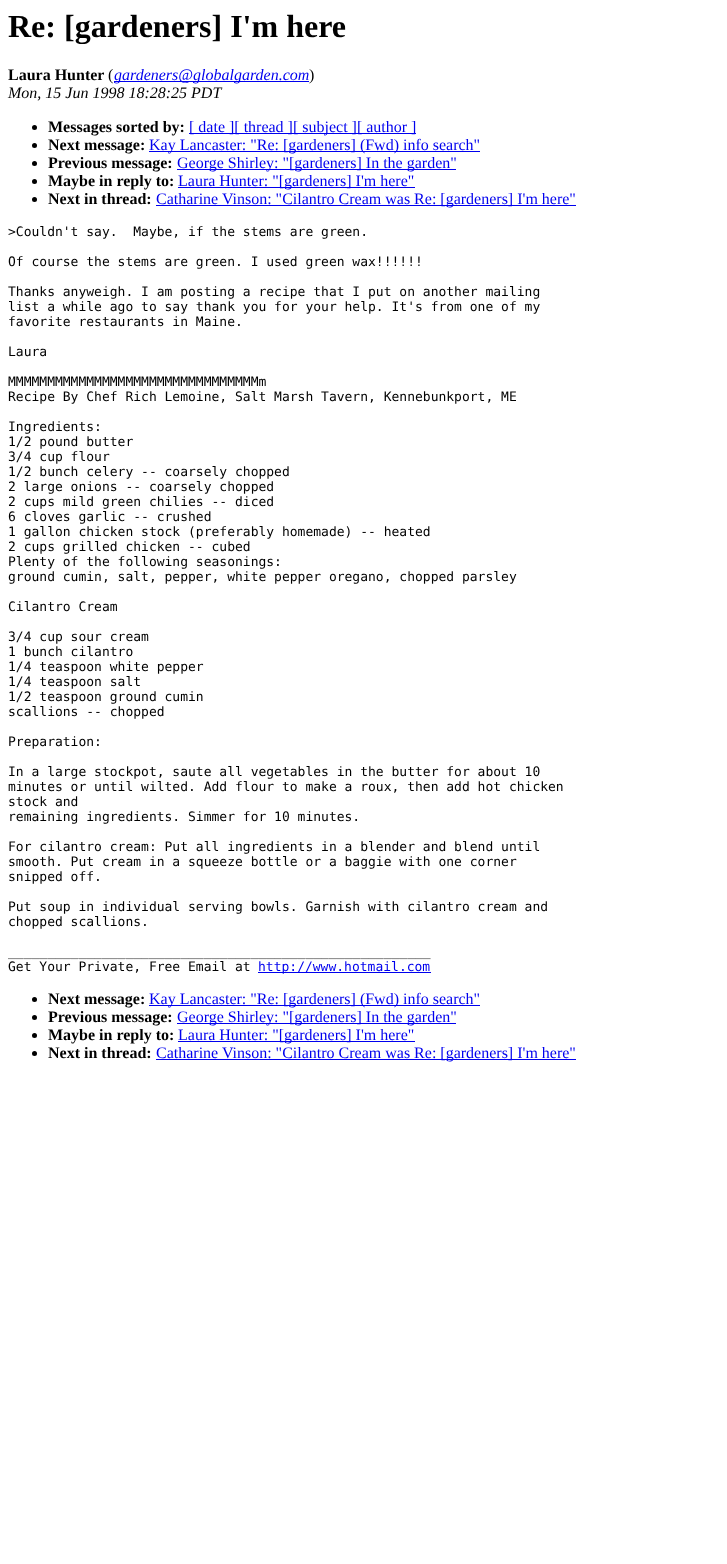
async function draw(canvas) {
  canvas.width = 727
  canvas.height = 1564
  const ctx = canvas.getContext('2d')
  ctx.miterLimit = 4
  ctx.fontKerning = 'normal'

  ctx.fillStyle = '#fff'
  ctx.fillRect(0, 0, 727, 1564)
  ctx.font = 'bold 32px Liberation Serif'
  ctx.fillStyle = '#000'
  ctx.fillText('Re: [gardeners] I\'m here', 8, 37)
  ctx.font = 'bold 16px Liberation Serif'
  ctx.fillText('Laura Hunter', 8, 80)
  ctx.font = '16px Liberation Serif'
  ctx.fillText('(', 108, 80)
  ctx.fillStyle = '#00e'
  ctx.fillRect(114, 81, 195, 1)
  ctx.font = 'italic 16px Liberation Serif'
  ctx.fillText('gardeners@globalgarden.com', 114, 80)
  ctx.font = '16px Liberation Serif'
  ctx.fillStyle = '#000'
  ctx.fillText(')', 309, 80)
  ctx.font = 'italic 16px Liberation Serif'
  ctx.fillText('Mon, 15 Jun 1998 18:28:25 PDT', 8, 98)
  ctx.beginPath()
  ctx.arc(34.5, 127.5, 2.5, 0, 2 * Math.PI)
  ctx.fill()
  ctx.font = 'bold 16px Liberation Serif'
  ctx.fillText('Messages sorted by:', 48, 132)
  ctx.fillStyle = '#00e'
  ctx.fillRect(189, 133, 227, 1)
  ctx.font = '16px Liberation Serif'
  ctx.fillText('[ date ][ thread ][ subject ][ author ]', 189, 132)
  ctx.fillStyle = '#000'
  ctx.beginPath()
  ctx.arc(34.5, 145.5, 2.5, 0, 2 * Math.PI)
  ctx.fill()
  ctx.font = 'bold 16px Liberation Serif'
  ctx.fillText('Next message:', 48, 150)
  ctx.fillStyle = '#00e'
  ctx.fillRect(149, 151, 331, 1)
  ctx.font = '16px Liberation Serif'
  ctx.fillText('Kay Lancaster: "Re: [gardeners] (Fwd) info search"', 149, 150)
  ctx.fillStyle = '#000'
  ctx.beginPath()
  ctx.arc(34.5, 163.5, 2.5, 0, 2 * Math.PI)
  ctx.fill()
  ctx.font = 'bold 16px Liberation Serif'
  ctx.fillText('Previous message:', 48, 168)
  ctx.fillStyle = '#00e'
  ctx.fillRect(177, 169, 279, 1)
  ctx.font = '16px Liberation Serif'
  ctx.fillText('George Shirley: "[gardeners] In the garden"', 177, 168)
  ctx.fillStyle = '#000'
  ctx.beginPath()
  ctx.arc(34.5, 181.5, 2.5, 0, 2 * Math.PI)
  ctx.fill()
  ctx.font = 'bold 16px Liberation Serif'
  ctx.fillText('Maybe in reply to:', 48, 186)
  ctx.fillStyle = '#00e'
  ctx.fillRect(178, 187, 237, 1)
  ctx.font = '16px Liberation Serif'
  ctx.fillText('Laura Hunter: "[gardeners] I\'m here"', 178, 186)
  ctx.fillStyle = '#000'
  ctx.beginPath()
  ctx.arc(34.5, 199.5, 2.5, 0, 2 * Math.PI)
  ctx.fill()
  ctx.font = 'bold 16px Liberation Serif'
  ctx.fillText('Next in thread:', 48, 204)
  ctx.fillStyle = '#00e'
  ctx.fillRect(156, 205, 420, 1)
  ctx.font = '16px Liberation Serif'
  ctx.fillText('Catharine Vinson: "Cilantro Cream was Re: [gardeners] I\'m here"', 156, 204)
  ctx.font = '13px DejaVu Sans Mono'
  ctx.fillStyle = '#000'
  ctx.fillText('>Couldn\'t say.  Maybe, if the stems are green.', 8, 236)
  ctx.fillText('Of course the stems are green. I used green wax!!!!!!', 8, 266)
  ctx.fillText('Thanks anyweigh. I am posting a recipe that I put on another mailing', 8, 296)
  ctx.fillText('list a while ago to say thank you for your help. It\'s from one of my', 8, 311)
  ctx.fillText('favorite restaurants in Maine.', 8, 326)
  ctx.fillText('Laura', 8, 356)
  ctx.fillText('MMMMMMMMMMMMMMMMMMMMMMMMMMMMMMMMm', 8, 386)
  ctx.fillText('Recipe By Chef Rich Lemoine, Salt Marsh Tavern, Kennebunkport, ME', 8, 401)
  ctx.fillText('Ingredients:', 8, 431)
  ctx.fillText('1/2 pound butter', 8, 446)
  ctx.fillText('3/4 cup flour', 8, 461)
  ctx.fillText('1/2 bunch celery -- coarsely chopped', 8, 476)
  ctx.fillText('2 large onions -- coarsely chopped', 8, 491)
  ctx.fillText('2 cups mild green chilies -- diced', 8, 506)
  ctx.fillText('6 cloves garlic -- crushed', 8, 521)
  ctx.fillText('1 gallon chicken stock (preferably homemade) -- heated', 8, 536)
  ctx.fillText('2 cups grilled chicken -- cubed', 8, 551)
  ctx.fillText('Plenty of the following seasonings:', 8, 566)
  ctx.fillText('ground cumin, salt, pepper, white pepper oregano, chopped parsley', 8, 581)
  ctx.fillText('Cilantro Cream', 8, 611)
  ctx.fillText('3/4 cup sour cream', 8, 641)
  ctx.fillText('1 bunch cilantro', 8, 656)
  ctx.fillText('1/4 teaspoon white pepper', 8, 671)
  ctx.fillText('1/4 teaspoon salt', 8, 686)
  ctx.fillText('1/2 teaspoon ground cumin', 8, 701)
  ctx.fillText('scallions -- chopped', 8, 716)
  ctx.fillText('Preparation:', 8, 746)
  ctx.fillText('In a large stockpot, saute all vegetables in the butter for about 10', 8, 776)
  ctx.fillText('minutes or until wilted. Add flour to make a roux, then add hot chicken', 8, 791)
  ctx.fillText('stock and', 8, 806)
  ctx.fillText('remaining ingredients. Simmer for 10 minutes.', 8, 821)
  ctx.fillText('For cilantro cream: Put all ingredients in a blender and blend until', 8, 851)
  ctx.fillText('smooth. Put cream in a squeeze bottle or a baggie with one corner', 8, 866)
  ctx.fillText('snipped off.', 8, 881)
  ctx.fillText('Put soup in individual serving bowls. Garnish with cilantro cream and', 8, 911)
  ctx.fillText('chopped scallions.', 8, 926)
  ctx.fillText('______________________________________________________', 8, 956)
  ctx.fillText('Get Your Private, Free Email at', 8, 971)
  ctx.fillStyle = '#00e'
  ctx.fillRect(258, 972, 173, 1)
  ctx.fillText('http://www.hotmail.com', 258, 971)
  ctx.fillStyle = '#000'
  ctx.beginPath()
  ctx.arc(34.5, 999.5, 2.5, 0, 2 * Math.PI)
  ctx.fill()
  ctx.font = 'bold 16px Liberation Serif'
  ctx.fillText('Next message:', 48, 1004)
  ctx.fillStyle = '#00e'
  ctx.fillRect(149, 1005, 331, 1)
  ctx.font = '16px Liberation Serif'
  ctx.fillText('Kay Lancaster: "Re: [gardeners] (Fwd) info search"', 149, 1004)
  ctx.fillStyle = '#000'
  ctx.beginPath()
  ctx.arc(34.5, 1017.5, 2.5, 0, 2 * Math.PI)
  ctx.fill()
  ctx.font = 'bold 16px Liberation Serif'
  ctx.fillText('Previous message:', 48, 1022)
  ctx.fillStyle = '#00e'
  ctx.fillRect(177, 1023, 279, 1)
  ctx.font = '16px Liberation Serif'
  ctx.fillText('George Shirley: "[gardeners] In the garden"', 177, 1022)
  ctx.fillStyle = '#000'
  ctx.beginPath()
  ctx.arc(34.5, 1035.5, 2.5, 0, 2 * Math.PI)
  ctx.fill()
  ctx.font = 'bold 16px Liberation Serif'
  ctx.fillText('Maybe in reply to:', 48, 1040)
  ctx.fillStyle = '#00e'
  ctx.fillRect(178, 1041, 237, 1)
  ctx.font = '16px Liberation Serif'
  ctx.fillText('Laura Hunter: "[gardeners] I\'m here"', 178, 1040)
  ctx.fillStyle = '#000'
  ctx.beginPath()
  ctx.arc(34.5, 1053.5, 2.5, 0, 2 * Math.PI)
  ctx.fill()
  ctx.font = 'bold 16px Liberation Serif'
  ctx.fillText('Next in thread:', 48, 1058)
  ctx.fillStyle = '#00e'
  ctx.fillRect(156, 1059, 420, 1)
  ctx.font = '16px Liberation Serif'
  ctx.fillText('Catharine Vinson: "Cilantro Cream was Re: [gardeners] I\'m here"', 156, 1058)
}

draw(document.querySelector('canvas'))
